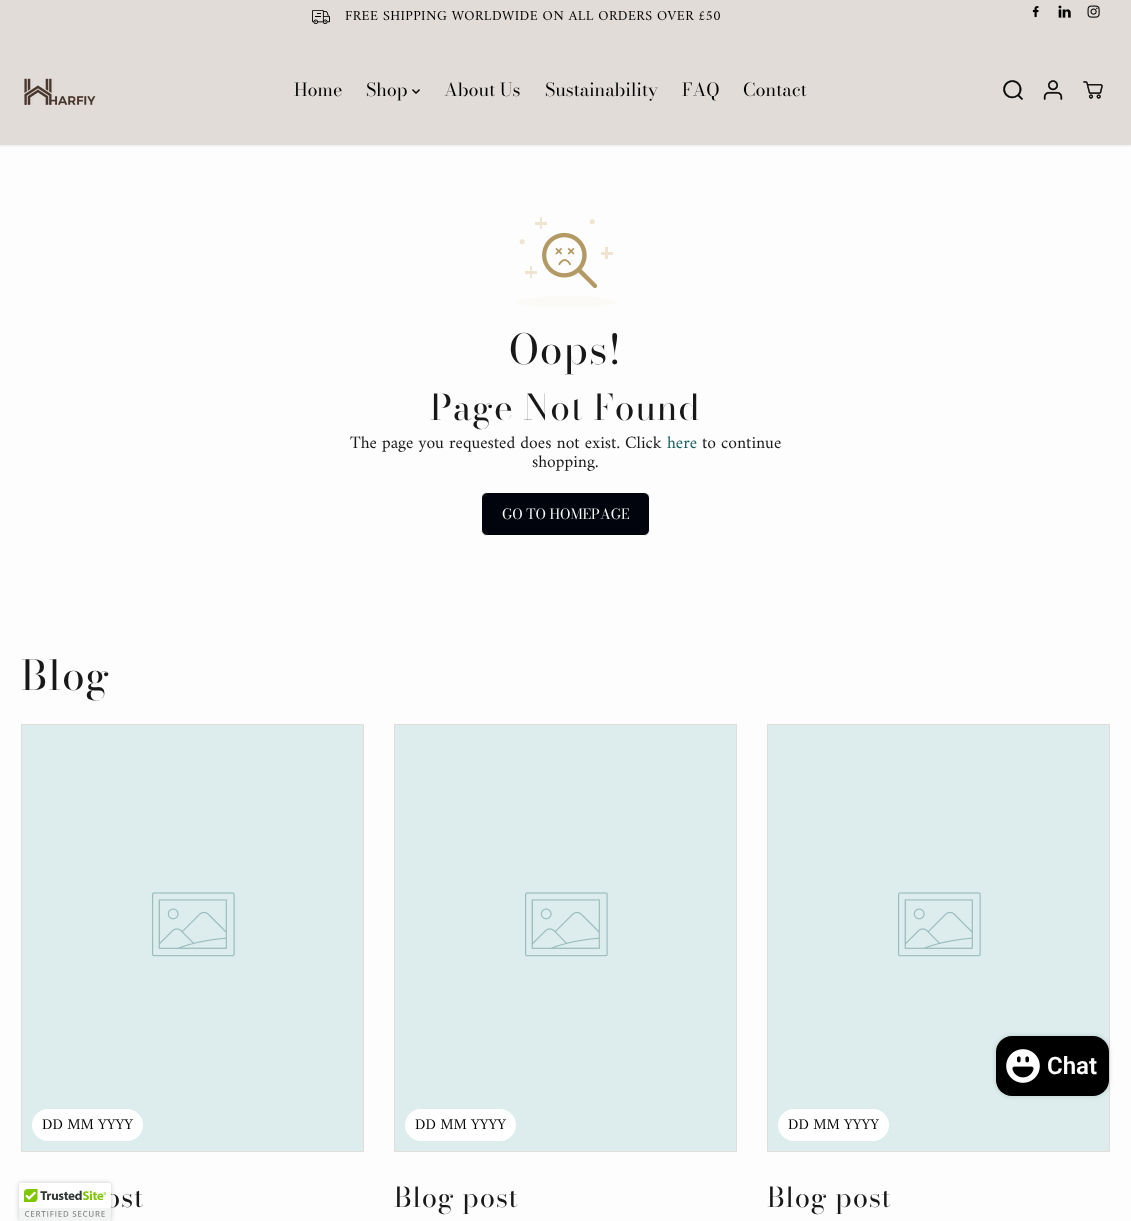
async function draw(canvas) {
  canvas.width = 1131
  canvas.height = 1221
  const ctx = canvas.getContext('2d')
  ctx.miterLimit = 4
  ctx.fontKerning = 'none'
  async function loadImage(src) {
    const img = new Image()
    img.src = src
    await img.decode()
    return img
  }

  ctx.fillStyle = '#fdfdfd'
  ctx.fillRect(0, 0, 1131, 1221)
  ctx.fillStyle = '#e1dcd8'
  ctx.fillRect(0, 35, 1131, 110)
  ctx.save()
  ctx.beginPath()
  ctx.rect(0, 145, 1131, 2)
  ctx.clip()
  ctx.fillStyle = '#0000000d'
  ctx.filter = 'blur(1px)'
  ctx.beginPath()
  ctx.rect(0, 37, 1131, 110)
  ctx.fill()
  ctx.filter = 'none'
  ctx.restore()
  ctx.fillRect(0, 0, 1131, 35)
  ctx.drawImage(await loadImage('image0.png'), 312, 10, 18, 14)
  ctx.letterSpacing = '0.4px'
  ctx.font = '14px Amiri'
  ctx.fillStyle = '#000'
  ctx.fillText('FREE SHIPPING WORLDWIDE ON ALL ORDERS OVER £50', 345, 20)
  ctx.drawImage(await loadImage('image1.png'), 1032, 6, 7, 12)
  ctx.drawImage(await loadImage('image2.png'), 1058, 5, 13, 13)
  ctx.drawImage(await loadImage('image3.png'), 1087, 5, 13, 13)
  ctx.drawImage(await loadImage('image4.png'), 24, 78, 72, 27)
  ctx.letterSpacing = '0px'
  ctx.font = '18px "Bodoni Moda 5"'
  ctx.fillText('Home', 294, 96)
  ctx.fillText('Shop', 366, 96)
  ctx.drawImage(await loadImage('image5.png'), 412, 89, 8, 5)
  ctx.fillText('About Us', 444, 96)
  ctx.fillText('Sustainability', 545, 96)
  ctx.fillText('FAQ', 682, 96)
  ctx.fillText('Contact', 743, 96)
  ctx.drawImage(await loadImage('image6.png'), 1003, 80, 20, 20)
  ctx.drawImage(await loadImage('image7.png'), 1043, 80, 20, 20)
  ctx.drawImage(await loadImage('image8.png'), 1083, 81, 20, 18)
  ctx.drawImage(await loadImage('image9.png'), 516, 217, 100, 90)
  ctx.letterSpacing = '1px'
  ctx.font = '41px Bodoni Moda'
  ctx.fillStyle = '#181818'
  ctx.fillText('Oops!', 509, 364)
  ctx.letterSpacing = '0.9px'
  ctx.font = '35.5px "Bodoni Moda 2"'
  ctx.fillText('Page Not Found', 430, 420)
  ctx.letterSpacing = '0px'
  ctx.font = '17.5px Amiri'
  ctx.fillText('The page you requested does not exist. Click', 350, 448)
  ctx.fillStyle = '#175e5d'
  ctx.fillText('here', 667, 448)
  ctx.fillStyle = '#181818'
  ctx.fillText('to continue', 702, 448)
  ctx.fillText('shopping.', 532, 467)
  ctx.fillStyle = '#01040d'
  ctx.beginPath()
  ctx.roundRect(481.5, 492.5, 168, 43, 5.5)
  ctx.fill()
  ctx.strokeStyle = '#fdfdfd'
  ctx.stroke()
  ctx.font = '14px "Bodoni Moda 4"'
  ctx.fillStyle = '#fdfdfd'
  ctx.fillText('GO TO HOMEPAGE', 502, 519)
  ctx.letterSpacing = '1px'
  ctx.font = '41px Bodoni Moda'
  ctx.fillStyle = '#181818'
  ctx.fillText('Blog', 21, 690)
  ctx.fillStyle = '#ddeded'
  ctx.beginPath()
  ctx.rect(21.5, 724.5, 342, 427)
  ctx.fill()
  ctx.strokeStyle = '#e1dcd8'
  ctx.stroke()
  ctx.drawImage(await loadImage('image10.png'), 152, 892, 83, 65)
  ctx.fillStyle = '#fff'
  ctx.beginPath()
  ctx.roundRect(32, 1109, 111, 32, 16)
  ctx.fill()
  ctx.letterSpacing = '0px'
  ctx.font = '15px Amiri'
  ctx.fillStyle = '#000'
  ctx.fillText('DD MM YYYY', 42, 1129)
  ctx.letterSpacing = '0.75px'
  ctx.font = '27.5px "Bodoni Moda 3"'
  ctx.fillStyle = '#181818'
  ctx.fillText('ost', 105, 1207)
  ctx.fillStyle = '#ddeded'
  ctx.beginPath()
  ctx.rect(394.5, 724.5, 342, 427)
  ctx.fill()
  ctx.stroke()
  ctx.drawImage(await loadImage('image10.png'), 525, 892, 83, 65)
  ctx.fillStyle = '#fff'
  ctx.beginPath()
  ctx.roundRect(405, 1109, 111, 32, 16)
  ctx.fill()
  ctx.letterSpacing = '0px'
  ctx.font = '15px Amiri'
  ctx.fillStyle = '#000'
  ctx.fillText('DD MM YYYY', 415, 1129)
  ctx.letterSpacing = '0.75px'
  ctx.font = '27.5px "Bodoni Moda 3"'
  ctx.fillStyle = '#181818'
  ctx.fillText('Blog post', 394, 1207)
  ctx.fillStyle = '#ddeded'
  ctx.beginPath()
  ctx.rect(767.5, 724.5, 342, 427)
  ctx.fill()
  ctx.stroke()
  ctx.drawImage(await loadImage('image10.png'), 898, 892, 83, 65)
  ctx.fillStyle = '#fff'
  ctx.beginPath()
  ctx.roundRect(778, 1109, 111, 32, 16)
  ctx.fill()
  ctx.letterSpacing = '0px'
  ctx.font = '15px Amiri'
  ctx.fillStyle = '#000'
  ctx.fillText('DD MM YYYY', 788, 1129)
  ctx.letterSpacing = '0.75px'
  ctx.font = '27.5px "Bodoni Moda 3"'
  ctx.fillStyle = '#181818'
  ctx.fillText('Blog post', 767, 1207)
  ctx.fillStyle = '#00000026'
  ctx.filter = 'blur(2.5px)'
  ctx.beginPath()
  ctx.roundRect(996, 1036, 113, 60, 16)
  ctx.fill()
  ctx.filter = 'none'
  ctx.fillStyle = '#000'
  ctx.beginPath()
  ctx.roundRect(996, 1036, 113, 60, 16)
  ctx.fill()
  ctx.drawImage(await loadImage('image11.png'), 1006, 1049, 34, 34)
  ctx.letterSpacing = '0px'
  ctx.font = '600 24px Roboto'
  ctx.fillStyle = '#fdfdfd'
  ctx.fillText('Chat', 1047, 1074)
  ctx.fillStyle = '#00000033'
  ctx.filter = 'blur(2.5px)'
  ctx.beginPath()
  ctx.roundRect(19, 1183, 92, 38, 2)
  ctx.fill()
  ctx.filter = 'none'
  ctx.fillStyle = '#fff'
  ctx.beginPath()
  ctx.roundRect(19, 1183, 92, 38, [2, 2, 0, 0])
  ctx.fill()
  ctx.drawImage(await loadImage('image12.png'), 19, 1189, 92, 32)
}

draw(document.querySelector('canvas'))
